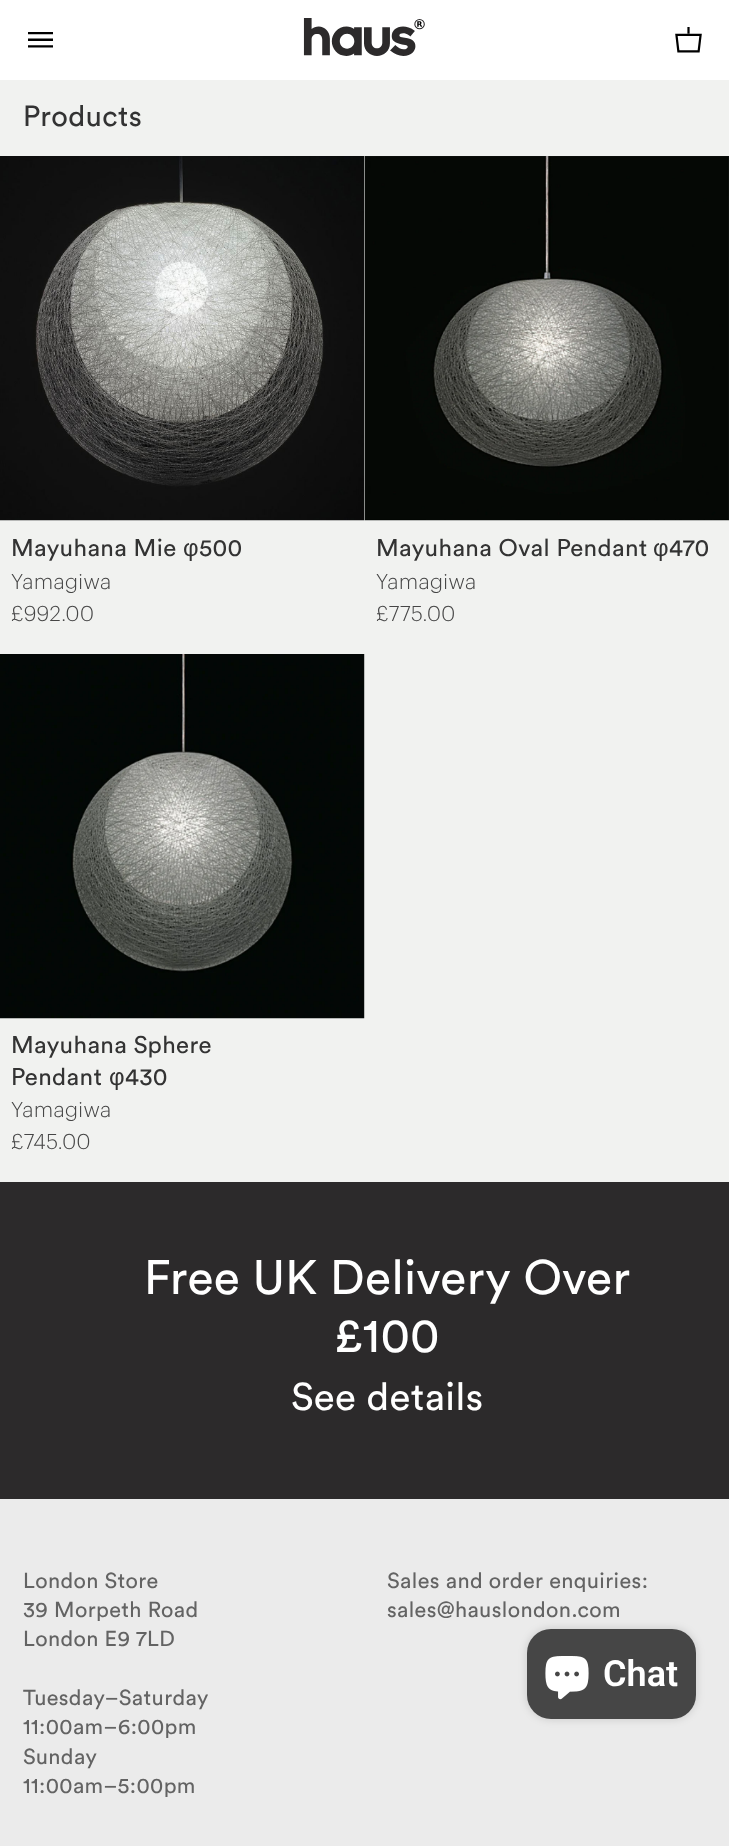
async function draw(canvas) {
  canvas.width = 729
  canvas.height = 1846
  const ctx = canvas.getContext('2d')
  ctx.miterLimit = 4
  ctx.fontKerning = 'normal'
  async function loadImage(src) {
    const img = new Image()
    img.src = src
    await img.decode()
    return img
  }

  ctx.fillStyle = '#f1f2f0'
  ctx.fillRect(0, 0, 729, 1846)
  ctx.fillStyle = '#fff'
  ctx.fillRect(0, 0, 729, 80)
  ctx.drawImage(await loadImage('image0.png'), 28, 32, 25, 16)
  ctx.drawImage(await loadImage('image1.png'), 303, 18, 122, 38)
  ctx.drawImage(await loadImage('image2.png'), 675, 27, 27, 26)
  ctx.letterSpacing = '0.4px'
  ctx.font = '29px Circular'
  ctx.fillStyle = '#333'
  ctx.fillText('Products', 23, 126)
  ctx.drawImage(await loadImage('image3.png'), 0, 156, 365, 365)
  ctx.font = '24px Circular'
  ctx.fillText('Mayuhana Mie', 11, 556)
  ctx.font = '24px Liberation Sans'
  ctx.fillText('φ', 183, 556)
  ctx.font = '24px Circular'
  ctx.fillText('500', 199, 556)
  ctx.font = '300 21px Graphik'
  ctx.fillStyle = '#464646'
  ctx.fillText('Yamagiwa', 11, 589)
  ctx.fillText('£992.00', 11, 621)
  ctx.drawImage(await loadImage('image4.png'), 364, 156, 365, 365)
  ctx.font = '24px Circular'
  ctx.fillStyle = '#333'
  ctx.fillText('Mayuhana Oval Pendant', 376, 556)
  ctx.font = '24px Liberation Sans'
  ctx.fillText('φ', 653, 556)
  ctx.font = '24px Circular'
  ctx.fillText('470', 669, 556)
  ctx.font = '300 21px Graphik'
  ctx.fillStyle = '#464646'
  ctx.fillText('Yamagiwa', 376, 589)
  ctx.fillText('£775.00', 376, 621)
  ctx.drawImage(await loadImage('image5.png'), 0, 654, 365, 365)
  ctx.font = '24px Circular'
  ctx.fillStyle = '#333'
  ctx.fillText('Mayuhana Sphere', 11, 1053)
  ctx.fillText('Pendant', 11, 1085)
  ctx.font = '24px Liberation Sans'
  ctx.fillText('φ', 109, 1085)
  ctx.font = '24px Circular'
  ctx.fillText('430', 125, 1085)
  ctx.font = '300 21px Graphik'
  ctx.fillStyle = '#464646'
  ctx.fillText('Yamagiwa', 11, 1117)
  ctx.fillText('£745.00', 11, 1149)
  ctx.fillStyle = '#2c2a2b'
  ctx.fillRect(0, 1182, 729, 317)
  ctx.font = '48px Circular'
  ctx.fillStyle = '#fff'
  ctx.fillText('Free UK Delivery Over', 144, 1294)
  ctx.fillText('£100', 334, 1352)
  ctx.font = '38.5px Circular'
  ctx.fillText('See details', 291, 1410)
  ctx.fillStyle = '#ebebeb'
  ctx.fillRect(0, 1499, 729, 347)
  ctx.font = '21.6px Circular'
  ctx.fillStyle = '#636363'
  ctx.fillText('London Store', 23, 1588)
  ctx.fillText('39 Morpeth Road', 23, 1617)
  ctx.fillText('London E9 7LD', 23, 1646)
  ctx.fillText('Tuesday–Saturday', 23, 1705)
  ctx.fillText('11:00am–6:00pm', 23, 1734)
  ctx.fillText('Sunday', 23, 1764)
  ctx.fillText('11:00am–5:00pm', 23, 1793)
  ctx.fillText('Sales and order enquiries:', 387, 1588)
  ctx.fillText('sales@hauslondon.com', 387, 1617)
  ctx.fillStyle = '#00000026'
  ctx.filter = 'blur(4px)'
  ctx.beginPath()
  ctx.roundRect(527, 1629, 169, 90, 24)
  ctx.fill()
  ctx.filter = 'none'
  ctx.fillStyle = '#464646'
  ctx.beginPath()
  ctx.roundRect(527, 1629, 169, 90, 24)
  ctx.fill()
  ctx.drawImage(await loadImage('image6.png'), 545, 1656, 44, 44)
  ctx.letterSpacing = '0px'
  ctx.font = '600 36px Roboto'
  ctx.fillStyle = '#fff'
  ctx.fillText('Chat', 603, 1686)
}

draw(document.querySelector('canvas'))
